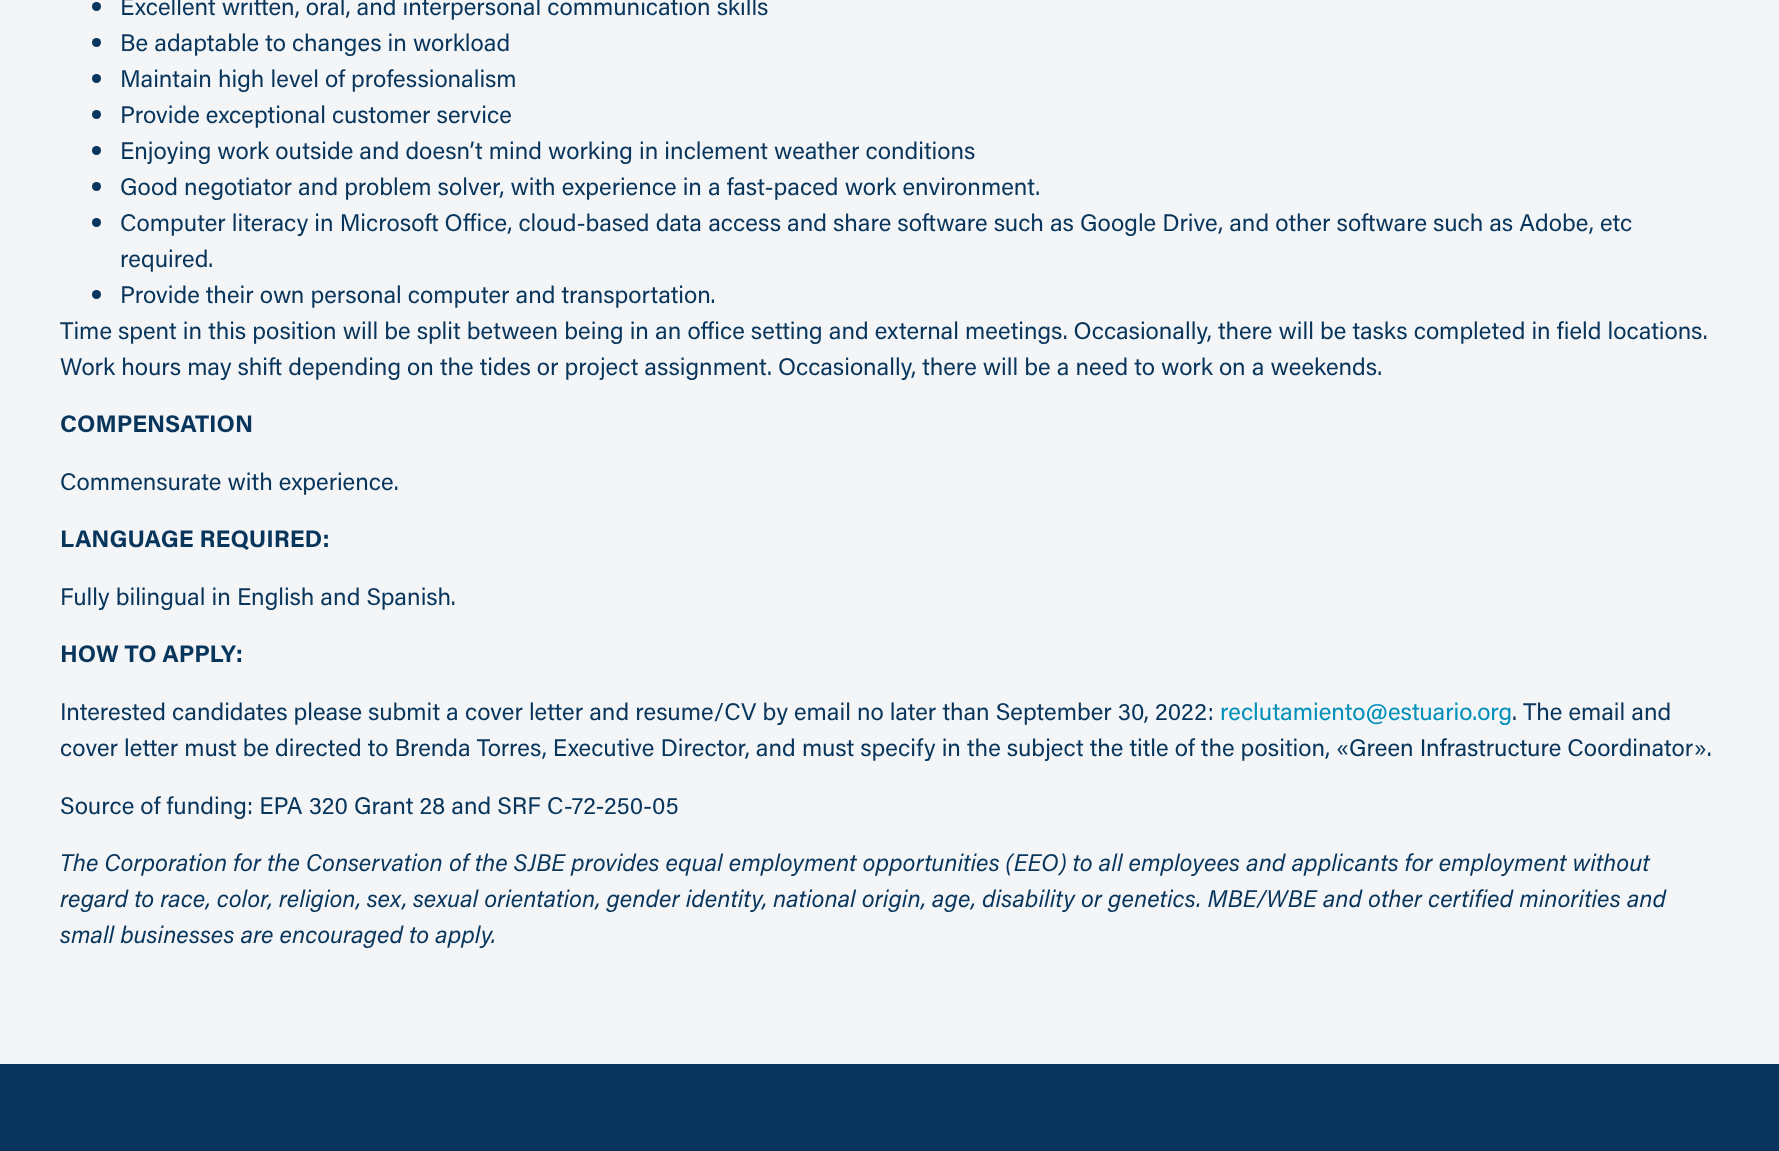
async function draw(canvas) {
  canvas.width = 1779
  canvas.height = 1151
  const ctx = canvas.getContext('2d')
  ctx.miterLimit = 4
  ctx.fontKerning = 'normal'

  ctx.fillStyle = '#f3f5f7'
  ctx.fillRect(0, 0, 1779, 1151)
  ctx.fillStyle = '#08355c'
  ctx.beginPath()
  ctx.arc(96.5, 6.5, 4.5, 0, 2 * Math.PI)
  ctx.fill()
  ctx.font = '24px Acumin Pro'
  ctx.fillText('Excellent written, oral, and interpersonal communication skills', 120, 15)
  ctx.beginPath()
  ctx.arc(96.5, 42.5, 4.5, 0, 2 * Math.PI)
  ctx.fill()
  ctx.fillText('Be adaptable to changes in workload', 120, 51)
  ctx.beginPath()
  ctx.arc(96.5, 78.5, 4.5, 0, 2 * Math.PI)
  ctx.fill()
  ctx.fillText('Maintain high level of professionalism', 120, 87)
  ctx.beginPath()
  ctx.arc(96.5, 114.5, 4.5, 0, 2 * Math.PI)
  ctx.fill()
  ctx.fillText('Provide exceptional customer service', 120, 123)
  ctx.beginPath()
  ctx.arc(96.5, 150.5, 4.5, 0, 2 * Math.PI)
  ctx.fill()
  ctx.fillText('Enjoying work outside and doesn’t mind working in inclement weather conditions', 120, 159)
  ctx.beginPath()
  ctx.arc(96.5, 186.5, 4.5, 0, 2 * Math.PI)
  ctx.fill()
  ctx.fillText('Good negotiator and problem solver, with experience in a fast-paced work environment.', 120, 195)
  ctx.beginPath()
  ctx.arc(96.5, 222.5, 4.5, 0, 2 * Math.PI)
  ctx.fill()
  ctx.fillText('Computer literacy in Microsoft Office, cloud-based data access and share software such as Google Drive, and other software such as Adobe, etc', 120, 231)
  ctx.fillText('required.', 120, 267)
  ctx.beginPath()
  ctx.arc(96.5, 294.5, 4.5, 0, 2 * Math.PI)
  ctx.fill()
  ctx.fillText('Provide their own personal computer and transportation.', 120, 303)
  ctx.fillText('Time spent in this position will be split between being in an office setting and external meetings. Occasionally, there will be tasks completed in field locations.', 60, 339)
  ctx.fillText('Work hours may shift depending on the tides or project assignment. Occasionally, there will be a need to work on a weekends.', 60, 375)
  ctx.font = 'bold 24px Acumin Pro'
  ctx.fillText('COMPENSATION', 60, 432)
  ctx.font = '24px Acumin Pro'
  ctx.fillText('Commensurate with experience.', 60, 490)
  ctx.font = 'bold 24px Acumin Pro'
  ctx.fillText('LANGUAGE REQUIRED:', 60, 547)
  ctx.font = '24px Acumin Pro'
  ctx.fillText('Fully bilingual in English and Spanish.', 60, 605)
  ctx.font = 'bold 24px Acumin Pro'
  ctx.fillText('HOW TO APPLY:', 60, 662)
  ctx.font = '24px Acumin Pro'
  ctx.fillText('Interested candidates please submit a cover letter and resume/CV by email no later than September 30, 2022:', 60, 720)
  ctx.fillStyle = '#0090ba'
  ctx.fillText('reclutamiento@estuario.org', 1220, 720)
  ctx.fillStyle = '#08355c'
  ctx.fillText('. The email and', 1512, 720)
  ctx.fillText('cover letter must be directed to Brenda Torres, Executive Director, and must specify in the subject the title of the position, «Green Infrastructure Coordinator».', 60, 756)
  ctx.fillText('Source of funding: EPA 320 Grant 28 and SRF C-72-250-05', 60, 814)
  ctx.font = 'italic 24px Acumin Pro'
  ctx.fillText('The Corporation for the Conservation of the SJBE provides equal employment opportunities (EEO) to all employees and applicants for employment without', 60, 871)
  ctx.fillText('regard to race, color, religion, sex, sexual orientation, gender identity, national origin, age, disability or genetics. MBE/WBE and other certified minorities and', 60, 907)
  ctx.fillText('small businesses are encouraged to apply.', 60, 943)
  ctx.fillStyle = '#07355b'
  ctx.fillRect(0, 1064, 1779, 87)
}

draw(document.querySelector('canvas'))
